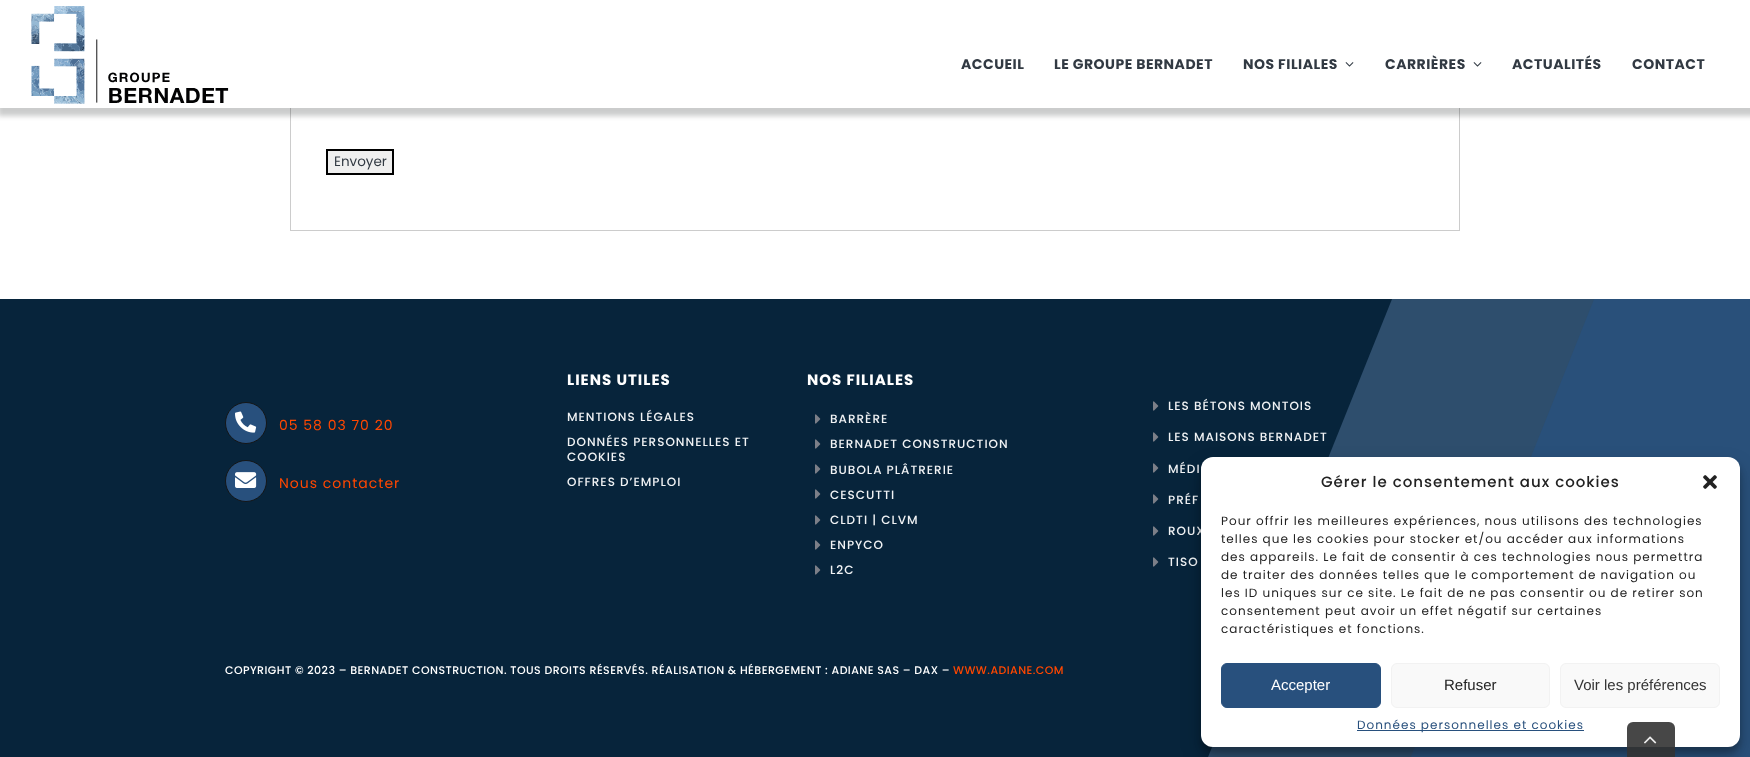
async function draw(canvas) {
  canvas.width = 1750
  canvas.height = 757
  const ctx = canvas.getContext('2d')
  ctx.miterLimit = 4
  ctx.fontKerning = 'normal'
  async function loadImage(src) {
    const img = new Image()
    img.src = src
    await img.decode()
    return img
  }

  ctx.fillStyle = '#fff'
  ctx.fillRect(0, 0, 1750, 757)
  ctx.strokeStyle = '#ccc'
  ctx.strokeRect(290.5, -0.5, 1169, 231)
  ctx.fillStyle = '#14161738'
  ctx.filter = 'blur(2.5px)'
  ctx.beginPath()
  ctx.rect(-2, -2, 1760, 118)
  ctx.fill()
  ctx.filter = 'none'
  ctx.fillStyle = '#fff'
  ctx.fillRect(0, 0, 1750, 108)
  ctx.drawImage(await loadImage('image0.png'), 31, 6, 198, 98)
  ctx.letterSpacing = '0.5px'
  ctx.font = 'bold 14px Poppins'
  ctx.fillStyle = '#323a43'
  ctx.fillText('ACCUEIL', 961, 69)
  ctx.fillText('LE GROUPE BERNADET', 1054, 69)
  ctx.fillText('NOS FILIALES', 1243, 69)
  ctx.drawImage(await loadImage('image1.png'), 1345, 62, 9, 5)
  ctx.fillText('CARRIÈRES', 1385, 69)
  ctx.drawImage(await loadImage('image1.png'), 1473, 62, 9, 5)
  ctx.fillText('ACTUALITÉS', 1512, 69)
  ctx.fillText('CONTACT', 1632, 69)
  ctx.fillStyle = '#efefef'
  ctx.beginPath()
  ctx.rect(327, 150, 66, 24)
  ctx.fill()
  ctx.strokeStyle = '#000'
  ctx.lineWidth = 2
  ctx.stroke()
  ctx.letterSpacing = '0px'
  ctx.font = '13.5px Poppins'
  ctx.fillStyle = '#323a43'
  ctx.fillText('Envoyer', 334, 166)
  ctx.fillStyle = '#07243b'
  ctx.fillRect(0, 299, 1392, 458)
  ctx.save()
  ctx.beginPath()
  ctx.rect(0, 299, 1750, 458)
  ctx.clip()
  ctx.fillStyle = '#2e4e6d'
  ctx.beginPath()
  ctx.moveTo(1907, 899)
  ctx.lineTo(1151, 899)
  ctx.lineTo(1433, 197)
  ctx.lineTo(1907, 197)
  ctx.closePath()
  ctx.fill()
  ctx.fillStyle = '#29507a'
  ctx.beginPath()
  ctx.moveTo(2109, 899)
  ctx.lineTo(1354, 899)
  ctx.lineTo(1635, 197)
  ctx.lineTo(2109, 197)
  ctx.closePath()
  ctx.fill()
  ctx.restore()
  ctx.fillStyle = '#28507d'
  ctx.beginPath()
  ctx.arc(246, 423, 20.5, 0, 2 * Math.PI)
  ctx.fill()
  ctx.strokeStyle = '#141617'
  ctx.lineWidth = 1
  ctx.stroke()
  ctx.drawImage(await loadImage('image2.png'), 235, 411, 22, 22)
  ctx.letterSpacing = '1px'
  ctx.font = '14px Poppins'
  ctx.fillStyle = '#ff4700'
  ctx.fillText('05 58 03 70 20', 279, 430)
  ctx.fillStyle = '#28507d'
  ctx.beginPath()
  ctx.arc(246, 481, 20.5, 0, 2 * Math.PI)
  ctx.fill()
  ctx.stroke()
  ctx.drawImage(await loadImage('image3.png'), 235, 472, 22, 16)
  ctx.fillStyle = '#ff4700'
  ctx.fillText('Nous contacter', 279, 488)
  ctx.font = 'bold 15px Poppins'
  ctx.fillStyle = '#fff'
  ctx.fillText('LIENS UTILES', 567, 385)
  ctx.font = '500 12px Poppins'
  ctx.fillStyle = '#f0f2f4'
  ctx.fillText('MENTIONS LÉGALES', 567, 421)
  ctx.fillText('DONNÉES PERSONNELLES ET', 567, 446)
  ctx.fillText('COOKIES', 567, 461)
  ctx.fillText('OFFRES D’EMPLOI', 567, 486)
  ctx.font = 'bold 15px Poppins'
  ctx.fillStyle = '#fff'
  ctx.fillText('NOS FILIALES', 807, 385)
  ctx.drawImage(await loadImage('image4.png'), 815, 414, 6, 10)
  ctx.font = '500 12px Poppins'
  ctx.fillStyle = '#f0f2f4'
  ctx.fillText('BARRÈRE', 830, 423)
  ctx.drawImage(await loadImage('image4.png'), 815, 439, 6, 10)
  ctx.fillText('BERNADET CONSTRUCTION', 830, 448)
  ctx.drawImage(await loadImage('image4.png'), 815, 464, 6, 10)
  ctx.fillText('BUBOLA PLÂTRERIE', 830, 474)
  ctx.drawImage(await loadImage('image4.png'), 815, 489, 6, 10)
  ctx.fillText('CESCUTTI', 830, 499)
  ctx.drawImage(await loadImage('image4.png'), 815, 515, 6, 10)
  ctx.fillText('CLDTI | CLVM', 830, 524)
  ctx.drawImage(await loadImage('image4.png'), 815, 540, 6, 10)
  ctx.fillText('ENPYCO', 830, 549)
  ctx.drawImage(await loadImage('image4.png'), 815, 565, 6, 10)
  ctx.fillText('L2C', 830, 574)
  ctx.drawImage(await loadImage('image4.png'), 1153, 401, 6, 10)
  ctx.fillText('LES BÉTONS MONTOIS', 1168, 410)
  ctx.drawImage(await loadImage('image4.png'), 1153, 432, 6, 10)
  ctx.fillText('LES MAISONS BERNADET', 1168, 441)
  ctx.drawImage(await loadImage('image4.png'), 1153, 463, 6, 10)
  ctx.fillText('MÉDI', 1168, 473)
  ctx.drawImage(await loadImage('image4.png'), 1153, 494, 6, 10)
  ctx.fillText('PRÉF', 1168, 504)
  ctx.drawImage(await loadImage('image4.png'), 1153, 526, 6, 10)
  ctx.fillText('ROUX', 1168, 535)
  ctx.drawImage(await loadImage('image4.png'), 1153, 557, 6, 10)
  ctx.fillText('TISO', 1168, 566)
  ctx.letterSpacing = '0.44px'
  ctx.font = '500 11px Poppins'
  ctx.fillStyle = '#fff'
  ctx.fillText('COPYRIGHT © 2023 – BERNADET CONSTRUCTION. TOUS DROITS RÉSERVÉS. RÉALISATION & HÉBERGEMENT : ADIANE SAS – DAX –', 225, 674)
  ctx.fillStyle = '#ff4700'
  ctx.fillText('WWW.ADIANE.COM', 953, 674)
  ctx.fillStyle = '#0000003b'
  ctx.filter = 'blur(3px)'
  ctx.beginPath()
  ctx.roundRect(1201, 463, 539, 290, 12)
  ctx.fill()
  ctx.filter = 'none'
  ctx.fillStyle = '#00000030'
  ctx.filter = 'blur(10px)'
  ctx.beginPath()
  ctx.roundRect(1201, 467, 539, 290, 12)
  ctx.fill()
  ctx.filter = 'none'
  ctx.fillStyle = '#fff'
  ctx.beginPath()
  ctx.roundRect(1201, 457, 539, 290, 12)
  ctx.fill()
  ctx.letterSpacing = '1px'
  ctx.font = '500 15px Poppins'
  ctx.fillStyle = '#222'
  ctx.fillText('Gérer le consentement aux cookies', 1321, 487)
  ctx.drawImage(await loadImage('image5.png'), 1703, 475, 14, 14)
  ctx.font = '12px Poppins'
  ctx.fillText('Pour offrir les meilleures expériences, nous utilisons des technologies', 1221, 525)
  ctx.fillText('telles que les cookies pour stocker et/ou accéder aux informations', 1221, 543)
  ctx.fillText('des appareils. Le fait de consentir à ces technologies nous permettra', 1221, 561)
  ctx.fillText('de traiter des données telles que le comportement de navigation ou', 1221, 579)
  ctx.fillText('les ID uniques sur ce site. Le fait de ne pas consentir ou de retirer son', 1221, 597)
  ctx.fillText('consentement peut avoir un effet négatif sur certaines', 1221, 615)
  ctx.fillText('caractéristiques et fonctions.', 1221, 633)
  ctx.fillStyle = '#28507d'
  ctx.beginPath()
  ctx.roundRect(1221.5, 663.5, 159, 44, 5.5)
  ctx.fill()
  ctx.strokeStyle = '#28507d'
  ctx.stroke()
  ctx.letterSpacing = '0px'
  ctx.font = '15px Liberation Sans'
  ctx.fillStyle = '#fff'
  ctx.fillText('Accepter', 1271, 690)
  ctx.fillStyle = '#f9f9f9'
  ctx.beginPath()
  ctx.roundRect(1391.5, 663.5, 158, 44, 5.5)
  ctx.fill()
  ctx.strokeStyle = '#f2f2f2'
  ctx.stroke()
  ctx.fillStyle = '#222'
  ctx.fillText('Refuser', 1444, 690)
  ctx.fillStyle = '#f9f9f9'
  ctx.beginPath()
  ctx.roundRect(1560.5, 663.5, 159, 44, 5.5)
  ctx.fill()
  ctx.stroke()
  ctx.fillStyle = '#333'
  ctx.fillText('Voir les préférences', 1574, 690)
  ctx.fillStyle = '#28507d'
  ctx.fillRect(1357, 730, 227, 1)
  ctx.letterSpacing = '1px'
  ctx.font = '12px Poppins'
  ctx.fillText('Données personnelles et cookies', 1357, 729)
  ctx.fillStyle = '#333333e6'
  ctx.beginPath()
  ctx.roundRect(1627, 722, 48, 35, [6, 6, 0, 0])
  ctx.fill()
  ctx.drawImage(await loadImage('image6.png'), 1644, 736, 13, 8)
}

draw(document.querySelector('canvas'))
